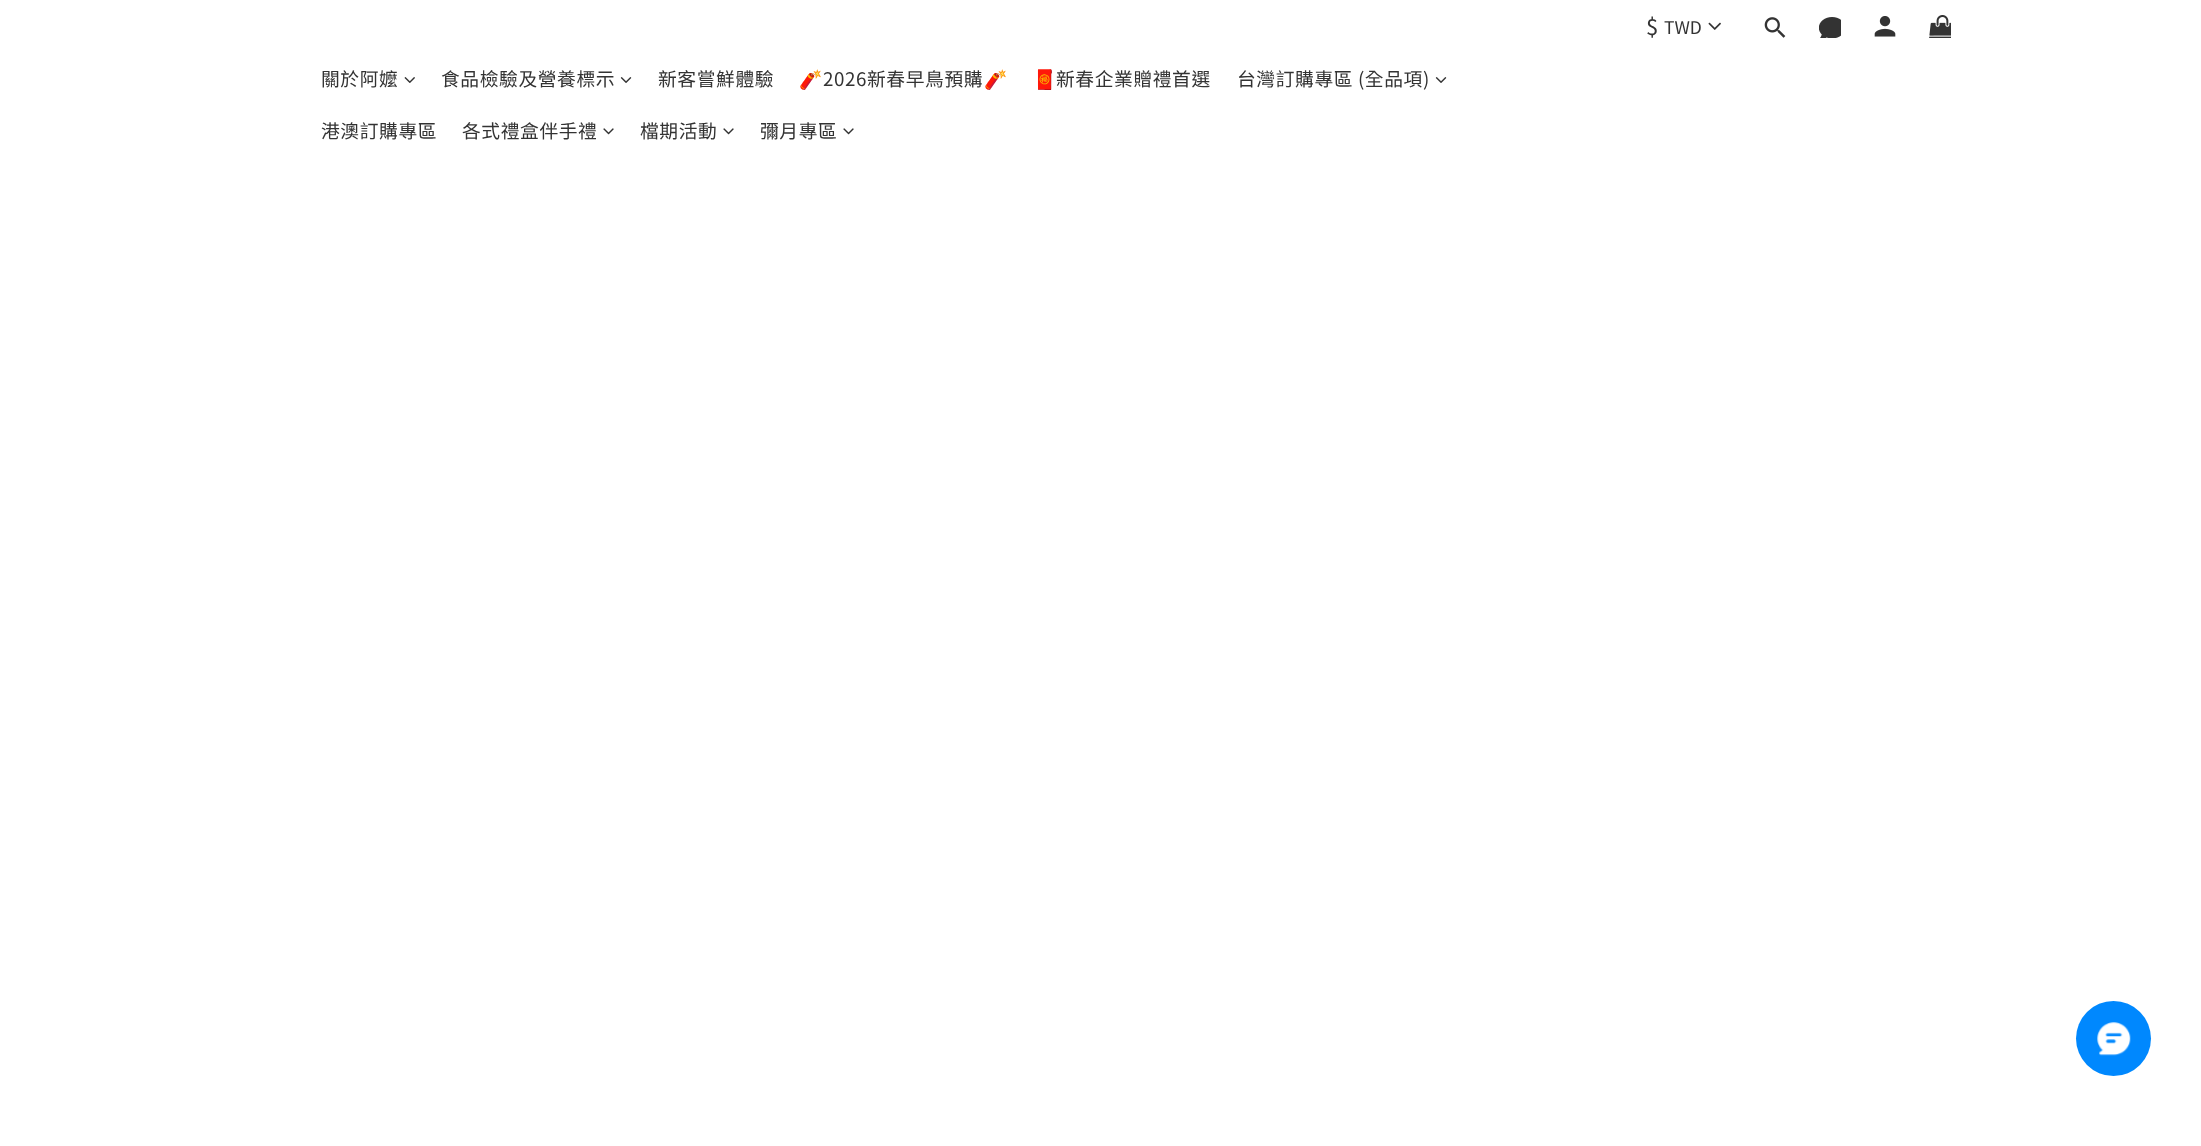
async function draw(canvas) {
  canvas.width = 2201
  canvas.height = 1146
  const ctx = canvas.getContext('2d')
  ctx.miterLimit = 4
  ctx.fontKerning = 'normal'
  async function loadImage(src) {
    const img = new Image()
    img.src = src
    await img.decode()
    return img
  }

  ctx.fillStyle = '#fff'
  ctx.fillRect(0, 0, 2201, 1146)
  ctx.letterSpacing = '1px'
  ctx.font = '22px Noto Sans TC'
  ctx.fillStyle = '#333'
  ctx.fillText('$', 1646, 35)
  ctx.letterSpacing = '0px'
  ctx.font = '17.5px Noto Sans TC'
  ctx.fillText('TWD', 1664, 34)
  ctx.drawImage(await loadImage('image0.png'), 1708, 22, 13, 8)
  ctx.drawImage(await loadImage('image1.png'), 1764, 17, 22, 21)
  ctx.drawImage(await loadImage('image2.png'), 1819, 17, 22, 21)
  ctx.drawImage(await loadImage('image3.png'), 1874, 16, 22, 21)
  ctx.drawImage(await loadImage('image4.png'), 1929, 15, 22, 23)
  ctx.letterSpacing = '0.6px'
  ctx.font = '18.75px Noto Sans TC'
  ctx.fillText('關於阿嬤', 321, 86)
  ctx.drawImage(await loadImage('image5.png'), 404, 77, 11, 6)
  ctx.fillText('食品檢驗及營養標示', 441, 86)
  ctx.drawImage(await loadImage('image6.png'), 620, 77, 12, 6)
  ctx.fillText('新客嘗鮮體驗', 658, 86)
  ctx.font = '18.75px Noto Color Emoji'
  ctx.fillText('🧨', 799, 86)
  ctx.font = '18.75px Noto Sans TC'
  ctx.fillText('2026新春早鳥預購', 823, 86)
  ctx.font = '18.75px Noto Color Emoji'
  ctx.fillText('🧨', 984, 86)
  ctx.fillText('🧧', 1033, 86)
  ctx.font = '18.75px Noto Sans TC'
  ctx.fillText('新春企業贈禮首選', 1056, 86)
  ctx.fillText('台灣訂購專區 (全品項)', 1237, 86)
  ctx.drawImage(await loadImage('image6.png'), 1435, 77, 12, 6)
  ctx.fillText('港澳訂購專區', 321, 138)
  ctx.fillText('各式禮盒伴手禮', 462, 138)
  ctx.drawImage(await loadImage('image7.png'), 603, 128, 11, 7)
  ctx.fillText('檔期活動', 640, 138)
  ctx.drawImage(await loadImage('image7.png'), 723, 128, 11, 7)
  ctx.fillText('彌月專區', 760, 138)
  ctx.drawImage(await loadImage('image7.png'), 843, 128, 11, 7)
  ctx.fillStyle = '#0088fe'
  ctx.beginPath()
  ctx.arc(2113.5, 1038.5, 37.5, 0, 2 * Math.PI)
  ctx.fill()
  ctx.drawImage(await loadImage('image8.png'), 2097, 1022, 34, 34)
}

draw(document.querySelector('canvas'))
